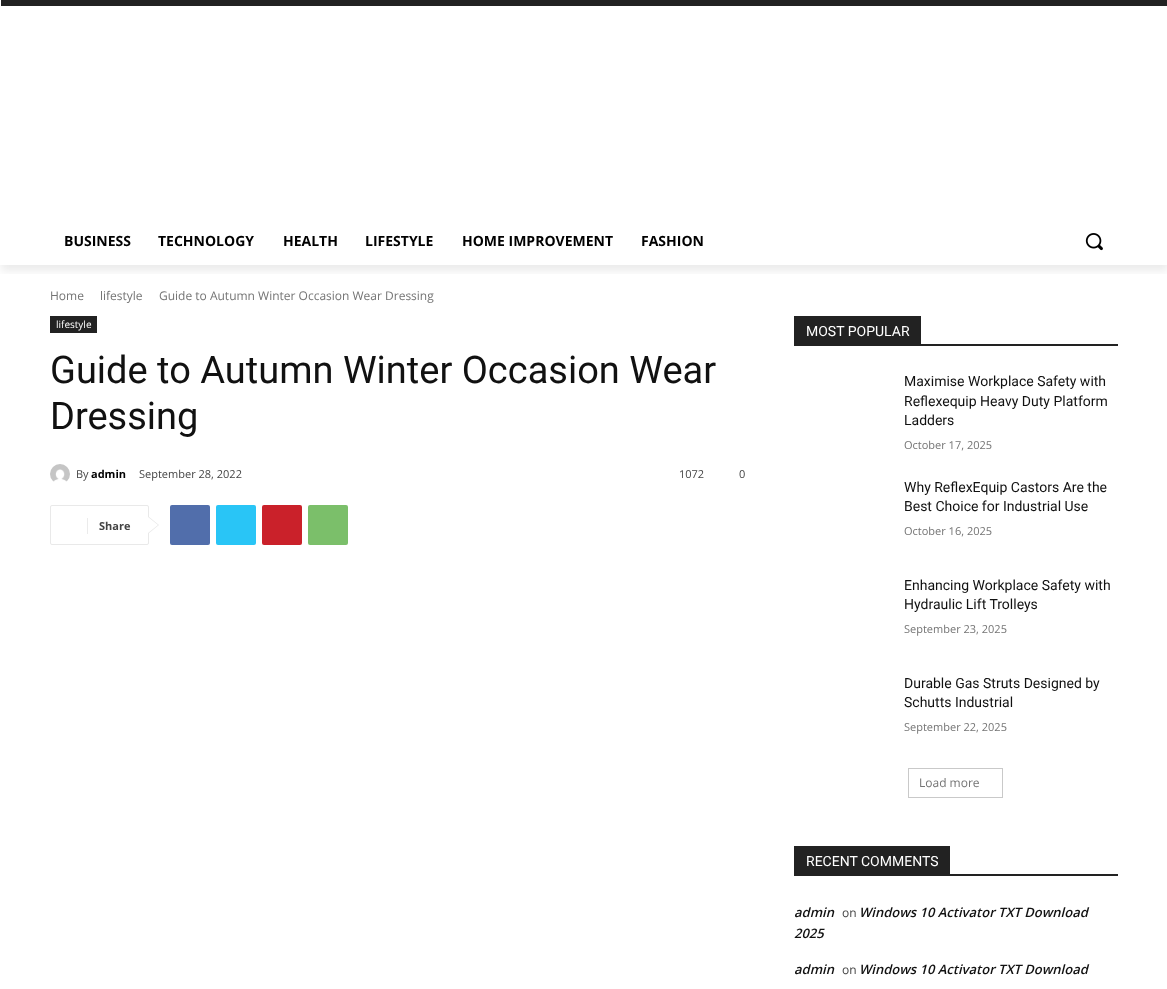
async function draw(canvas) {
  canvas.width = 1167
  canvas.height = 989
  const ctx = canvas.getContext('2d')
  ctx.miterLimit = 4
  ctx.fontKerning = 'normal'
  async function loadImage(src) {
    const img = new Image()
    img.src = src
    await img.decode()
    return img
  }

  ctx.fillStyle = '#fff'
  ctx.fillRect(0, 0, 1167, 989)
  ctx.fillStyle = '#222'
  ctx.fillRect(1, 0, 1166, 6)
  ctx.save()
  ctx.beginPath()
  ctx.rect(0, 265, 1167, 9)
  ctx.clip()
  ctx.fillStyle = '#00000014'
  ctx.filter = 'blur(4px)'
  ctx.beginPath()
  ctx.rect(1, -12, 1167, 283)
  ctx.fill()
  ctx.filter = 'none'
  ctx.restore()
  ctx.font = 'bold 14px Open Sans'
  ctx.fillStyle = '#000'
  ctx.fillText('BUSINESS', 64, 246)
  ctx.fillText('TECHNOLOGY', 158, 246)
  ctx.fillText('HEALTH', 283, 246)
  ctx.fillText('LIFESTYLE', 365, 246)
  ctx.fillText('HOME IMPROVEMENT', 462, 246)
  ctx.fillText('FASHION', 641, 246)
  ctx.drawImage(await loadImage('image0.png'), 1085, 233, 18, 18)
  ctx.font = '12px Open Sans'
  ctx.fillStyle = '#747474'
  ctx.fillText('Home', 50, 300)
  ctx.fillText('lifestyle', 100, 300)
  ctx.fillText('Guide to Autumn Winter Occasion Wear Dressing', 159, 300)
  ctx.fillStyle = '#222'
  ctx.fillRect(50, 316, 47, 17)
  ctx.font = '10px Open Sans'
  ctx.fillStyle = '#fff'
  ctx.fillText('lifestyle', 56, 328)
  ctx.font = '38px Roboto'
  ctx.fillStyle = '#111'
  ctx.fillText('Guide to Autumn Winter Occasion Wear', 50, 383)
  ctx.fillText('Dressing', 50, 429)
  ctx.drawImage(await loadImage('image1.png'), 50, 464, 20, 18)
  ctx.font = '11px Open Sans'
  ctx.fillStyle = '#444'
  ctx.fillText('By', 76, 478)
  ctx.font = 'bold 11px Open Sans'
  ctx.fillStyle = '#000'
  ctx.fillText('admin', 91, 478)
  ctx.font = '11px Open Sans'
  ctx.fillStyle = '#444'
  ctx.fillText('September 28, 2022', 139, 478)
  ctx.fillText('1072', 679, 478)
  ctx.fillText('0', 739, 478)
  ctx.beginPath()
  ctx.roundRect(50.5, 505.5, 98, 39, 1.5)
  ctx.strokeStyle = '#e9e9e9'
  ctx.stroke()
  ctx.fillStyle = '#e9e9e9'
  ctx.beginPath()
  ctx.moveTo(148, 534)
  ctx.lineTo(148, 516)
  ctx.lineTo(159, 525)
  ctx.closePath()
  ctx.fill()
  ctx.fillStyle = '#ebebeb'
  ctx.fillRect(87, 518, 1, 16)
  ctx.font = 'bold 11px Open Sans'
  ctx.fillStyle = '#444'
  ctx.fillText('Share', 99, 530)
  ctx.fillStyle = '#fff'
  ctx.beginPath()
  ctx.moveTo(148, 533)
  ctx.lineTo(148, 517)
  ctx.lineTo(158, 525)
  ctx.closePath()
  ctx.fill()
  ctx.fillStyle = '#516eab'
  ctx.beginPath()
  ctx.roundRect(170, 505, 40, 40, 2)
  ctx.fill()
  ctx.fillStyle = '#29c5f6'
  ctx.beginPath()
  ctx.roundRect(216, 505, 40, 40, 2)
  ctx.fill()
  ctx.fillStyle = '#ca212a'
  ctx.beginPath()
  ctx.roundRect(262, 505, 40, 40, 2)
  ctx.fill()
  ctx.fillStyle = '#7bbf6a'
  ctx.beginPath()
  ctx.roundRect(308, 505, 40, 40, 2)
  ctx.fill()
  ctx.fillStyle = '#222'
  ctx.fillRect(794, 344, 324, 2)
  ctx.fillRect(794, 316, 127, 28)
  ctx.font = '14px Roboto'
  ctx.fillStyle = '#fff'
  ctx.fillText('MOST POPULAR', 806, 336)
  ctx.fillStyle = '#111'
  ctx.fillText('Maximise Workplace Safety with', 904, 386)
  ctx.fillText('Reflexequip Heavy Duty Platform', 904, 406)
  ctx.fillText('Ladders', 904, 425)
  ctx.font = '11px Open Sans'
  ctx.fillStyle = '#747474'
  ctx.fillText('October 17, 2025', 904, 449)
  ctx.font = '14px Roboto'
  ctx.fillStyle = '#111'
  ctx.fillText('Why ReflexEquip Castors Are the', 904, 492)
  ctx.fillText('Best Choice for Industrial Use', 904, 511)
  ctx.font = '11px Open Sans'
  ctx.fillStyle = '#747474'
  ctx.fillText('October 16, 2025', 904, 535)
  ctx.font = '14px Roboto'
  ctx.fillStyle = '#111'
  ctx.fillText('Enhancing Workplace Safety with', 904, 590)
  ctx.fillText('Hydraulic Lift Trolleys', 904, 609)
  ctx.font = '11px Open Sans'
  ctx.fillStyle = '#747474'
  ctx.fillText('September 23, 2025', 904, 633)
  ctx.font = '14px Roboto'
  ctx.fillStyle = '#111'
  ctx.fillText('Durable Gas Struts Designed by', 904, 688)
  ctx.fillText('Schutts Industrial', 904, 707)
  ctx.font = '11px Open Sans'
  ctx.fillStyle = '#747474'
  ctx.fillText('September 22, 2025', 904, 731)
  ctx.strokeStyle = '#c9c9c9'
  ctx.strokeRect(908.5, 768.5, 94, 29)
  ctx.font = '12px Open Sans'
  ctx.fillText('Load more', 919, 787)
  ctx.fillStyle = '#222'
  ctx.fillRect(794, 874, 324, 2)
  ctx.fillRect(794, 846, 156, 28)
  ctx.font = '14px Roboto'
  ctx.fillStyle = '#fff'
  ctx.fillText('RECENT COMMENTS', 806, 866)
  ctx.font = 'italic 600 13px Open Sans'
  ctx.fillStyle = '#111'
  ctx.fillText('admin', 794, 917)
  ctx.font = '12px Open Sans'
  ctx.fillStyle = '#444'
  ctx.fillText('on', 842, 917)
  ctx.font = 'italic 600 13px Open Sans'
  ctx.fillStyle = '#111'
  ctx.fillText('Windows 10 Activator TXT Download', 859, 917)
  ctx.fillText('2025', 794, 938)
  ctx.fillText('admin', 794, 974)
  ctx.font = '12px Open Sans'
  ctx.fillStyle = '#444'
  ctx.fillText('on', 842, 974)
  ctx.font = 'italic 600 13px Open Sans'
  ctx.fillStyle = '#111'
  ctx.fillText('Windows 10 Activator TXT Download', 859, 974)
}

draw(document.querySelector('canvas'))
